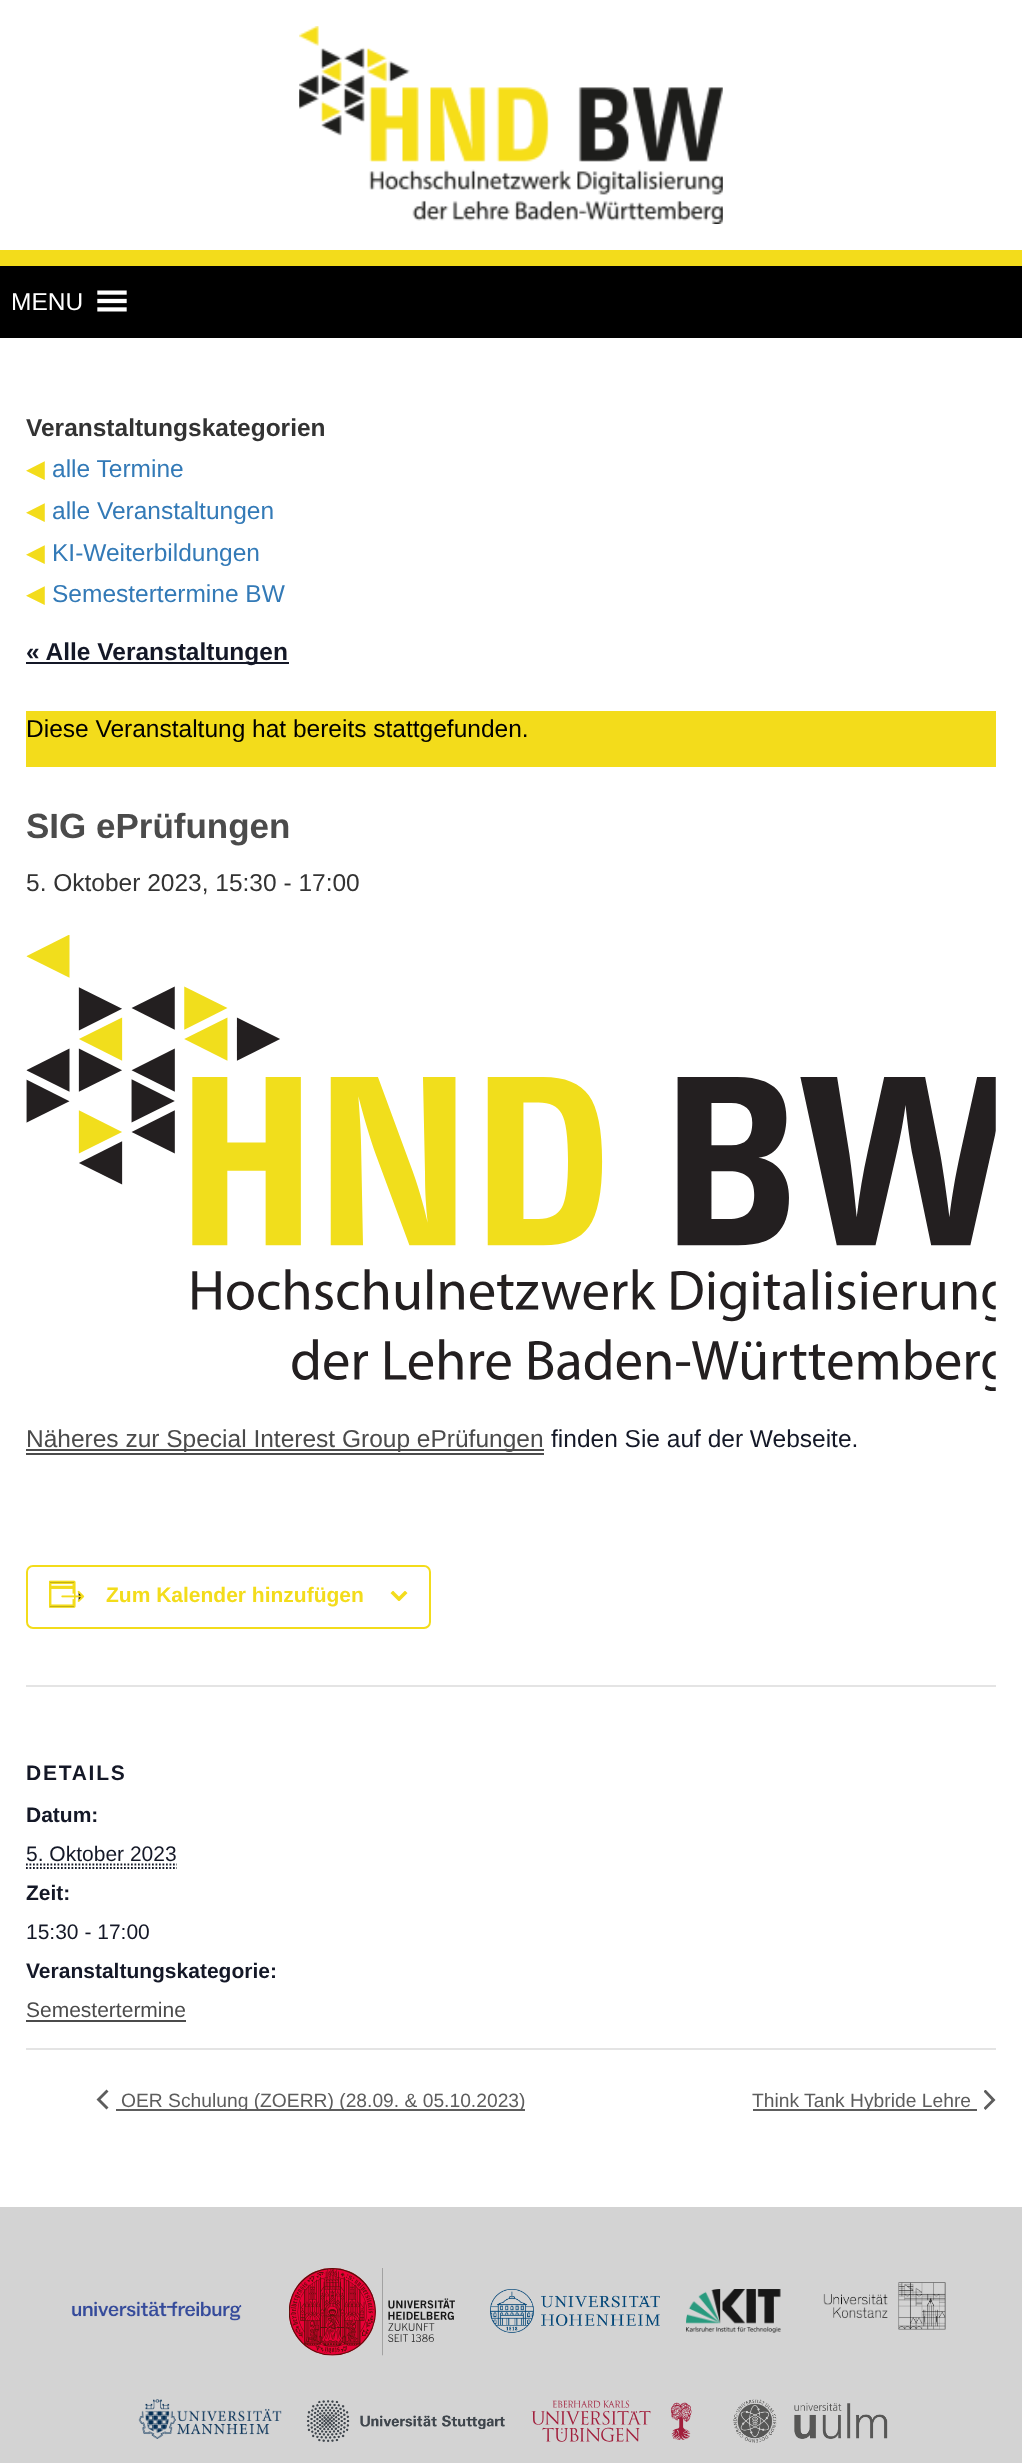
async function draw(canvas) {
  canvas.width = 1022
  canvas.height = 2463
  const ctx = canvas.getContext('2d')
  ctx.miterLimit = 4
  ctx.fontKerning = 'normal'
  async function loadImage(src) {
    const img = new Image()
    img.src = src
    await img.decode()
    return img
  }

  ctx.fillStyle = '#fff'
  ctx.fillRect(0, 0, 1022, 2463)
  ctx.drawImage(await loadImage('image0.png'), 299, 26, 424, 198)
  ctx.fillStyle = '#000'
  ctx.fillRect(0, 266, 1022, 72)
  ctx.fillStyle = '#f3dc1b'
  ctx.fillRect(0, 250, 1022, 16)
  ctx.font = '24.5px Liberation Sans'
  ctx.fillStyle = '#fff'
  ctx.fillText('MENU', 11, 310)
  ctx.drawImage(await loadImage('image1.png'), 97, 290, 30, 22)
  ctx.font = 'bold 24.5px Liberation Sans'
  ctx.fillStyle = '#333'
  ctx.fillText('Veranstaltungskategorien', 26, 436)
  ctx.font = '24.5px DejaVu Sans'
  ctx.fillStyle = '#f3dc1b'
  ctx.fillText('◀', 26, 477)
  ctx.font = '24.5px Liberation Sans'
  ctx.fillStyle = '#337ab7'
  ctx.fillText('alle Termine', 52, 477)
  ctx.font = '24.5px DejaVu Sans'
  ctx.fillStyle = '#f3dc1b'
  ctx.fillText('◀', 26, 519)
  ctx.font = '24.5px Liberation Sans'
  ctx.fillStyle = '#337ab7'
  ctx.fillText('alle Veranstaltungen', 52, 519)
  ctx.font = '24.5px DejaVu Sans'
  ctx.fillStyle = '#f3dc1b'
  ctx.fillText('◀', 26, 561)
  ctx.font = '24.5px Liberation Sans'
  ctx.fillStyle = '#337ab7'
  ctx.fillText('KI-Weiterbildungen', 52, 561)
  ctx.font = '24.5px DejaVu Sans'
  ctx.fillStyle = '#f3dc1b'
  ctx.fillText('◀', 26, 602)
  ctx.font = '24.5px Liberation Sans'
  ctx.fillStyle = '#337ab7'
  ctx.fillText('Semestertermine BW', 52, 602)
  ctx.fillStyle = '#141827'
  ctx.fillRect(26, 662, 263, 2)
  ctx.font = 'bold 24.5px Liberation Sans'
  ctx.fillText('« Alle Veranstaltungen', 26, 660)
  ctx.fillStyle = '#f3dc1b'
  ctx.fillRect(26, 711, 970, 56)
  ctx.font = '24.5px Liberation Sans'
  ctx.fillStyle = '#000'
  ctx.fillText('Diese Veranstaltung hat bereits stattgefunden.', 26, 737)
  ctx.font = 'bold 35px Liberation Sans'
  ctx.fillStyle = '#4b4b4b'
  ctx.fillText('SIG ePrüfungen', 26, 838)
  ctx.font = '24.5px Liberation Sans'
  ctx.fillStyle = '#333'
  ctx.fillText('5. Oktober 2023, 15:30 - 17:00', 26, 891)
  ctx.drawImage(await loadImage('image2.png'), 26, 935, 970, 456)
  ctx.fillStyle = '#4b4b4b'
  ctx.fillRect(26, 1449, 518, 2)
  ctx.fillText('Näheres zur Special Interest Group ePrüfungen', 26, 1447)
  ctx.fillRect(26, 1453, 518, 2)
  ctx.fillStyle = '#141827'
  ctx.fillText('finden Sie auf der Webseite.', 551, 1447)
  ctx.beginPath()
  ctx.roundRect(27, 1566, 403, 62, 6)
  ctx.strokeStyle = '#f3dc1b'
  ctx.lineWidth = 2
  ctx.stroke()
  ctx.drawImage(await loadImage('image3.png'), 49, 1580, 36, 28)
  ctx.font = 'bold 21px Liberation Sans'
  ctx.fillStyle = '#f3dc1b'
  ctx.fillText('Zum Kalender hinzufügen', 106, 1602)
  ctx.drawImage(await loadImage('image4.png'), 390, 1591, 18, 10)
  ctx.fillStyle = '#e4e4e4'
  ctx.fillRect(26, 1685, 970, 2)
  ctx.letterSpacing = '1.75px'
  ctx.fillStyle = '#141827'
  ctx.fillText('DETAILS', 26, 1780)
  ctx.letterSpacing = '0px'
  ctx.fillText('Datum:', 26, 1822)
  ctx.font = '21px Liberation Sans'
  ctx.fillText('5. Oktober 2023', 26, 1861)
  ctx.beginPath()
  ctx.moveTo(26, 1868)
  ctx.lineTo(177, 1868)
  ctx.strokeStyle = '#141827'
  ctx.lineWidth = 1.8
  ctx.setLineDash([1.75, 1.75])
  ctx.stroke()
  ctx.beginPath()
  ctx.moveTo(26, 1864.5)
  ctx.lineTo(177, 1864.5)
  ctx.stroke()
  ctx.font = 'bold 21px Liberation Sans'
  ctx.fillText('Zeit:', 26, 1900)
  ctx.font = '21px Liberation Sans'
  ctx.fillText('15:30 - 17:00', 26, 1939)
  ctx.font = 'bold 21px Liberation Sans'
  ctx.fillText('Veranstaltungskategorie:', 26, 1978)
  ctx.font = '21px Liberation Sans'
  ctx.fillStyle = '#4b4b4b'
  ctx.fillText('Semestertermine', 26, 2017)
  ctx.fillRect(26, 2020, 160, 2)
  ctx.fillStyle = '#e4e4e4'
  ctx.fillRect(26, 2048, 970, 2)
  ctx.fillStyle = '#5d5d5d'
  ctx.beginPath()
  ctx.moveTo(108.5, 2107.5)
  ctx.lineTo(106.5, 2109.5)
  ctx.lineTo(96.5, 2099.5)
  ctx.lineTo(106.5, 2089.5)
  ctx.lineTo(108.5, 2091.5)
  ctx.lineTo(100.5, 2099.5)
  ctx.closePath()
  ctx.fill()
  ctx.fillRect(116, 2109, 409, 2)
  ctx.font = '19.25px Liberation Sans'
  ctx.fillText('OER Schulung (ZOERR) (28.09. & 05.10.2023)', 121, 2107)
  ctx.fillRect(753, 2109, 224, 2)
  ctx.fillText('Think Tank Hybride Lehre', 752, 2107)
  ctx.save()
  ctx.beginPath()
  ctx.rect(984, 2090, 12, 21)
  ctx.clip()
  ctx.beginPath()
  ctx.moveTo(983.5, 2091.5)
  ctx.lineTo(985.5, 2089.5)
  ctx.lineTo(995.5, 2100)
  ctx.lineTo(985.5, 2110)
  ctx.lineTo(983.5, 2108)
  ctx.lineTo(991.5, 2100)
  ctx.closePath()
  ctx.fill()
  ctx.restore()
  ctx.fillStyle = '#d3d3d3'
  ctx.fillRect(0, 2207, 1022, 256)
  ctx.drawImage(await loadImage('image5.png'), 71, 2301, 171, 20)
  ctx.drawImage(await loadImage('image6.png'), 289, 2268, 166, 88)
  ctx.drawImage(await loadImage('image7.png'), 490, 2289, 170, 44)
  ctx.drawImage(await loadImage('image8.png'), 686, 2289, 95, 44)
  ctx.drawImage(await loadImage('image9.png'), 823, 2282, 123, 48)
  ctx.drawImage(await loadImage('image10.png'), 138, 2399, 144, 40)
  ctx.drawImage(await loadImage('image11.png'), 306, 2400, 199, 42)
  ctx.drawImage(await loadImage('image12.png'), 531, 2400, 161, 42)
  ctx.drawImage(await loadImage('image13.png'), 733, 2399, 155, 44)
}

draw(document.querySelector('canvas'))
